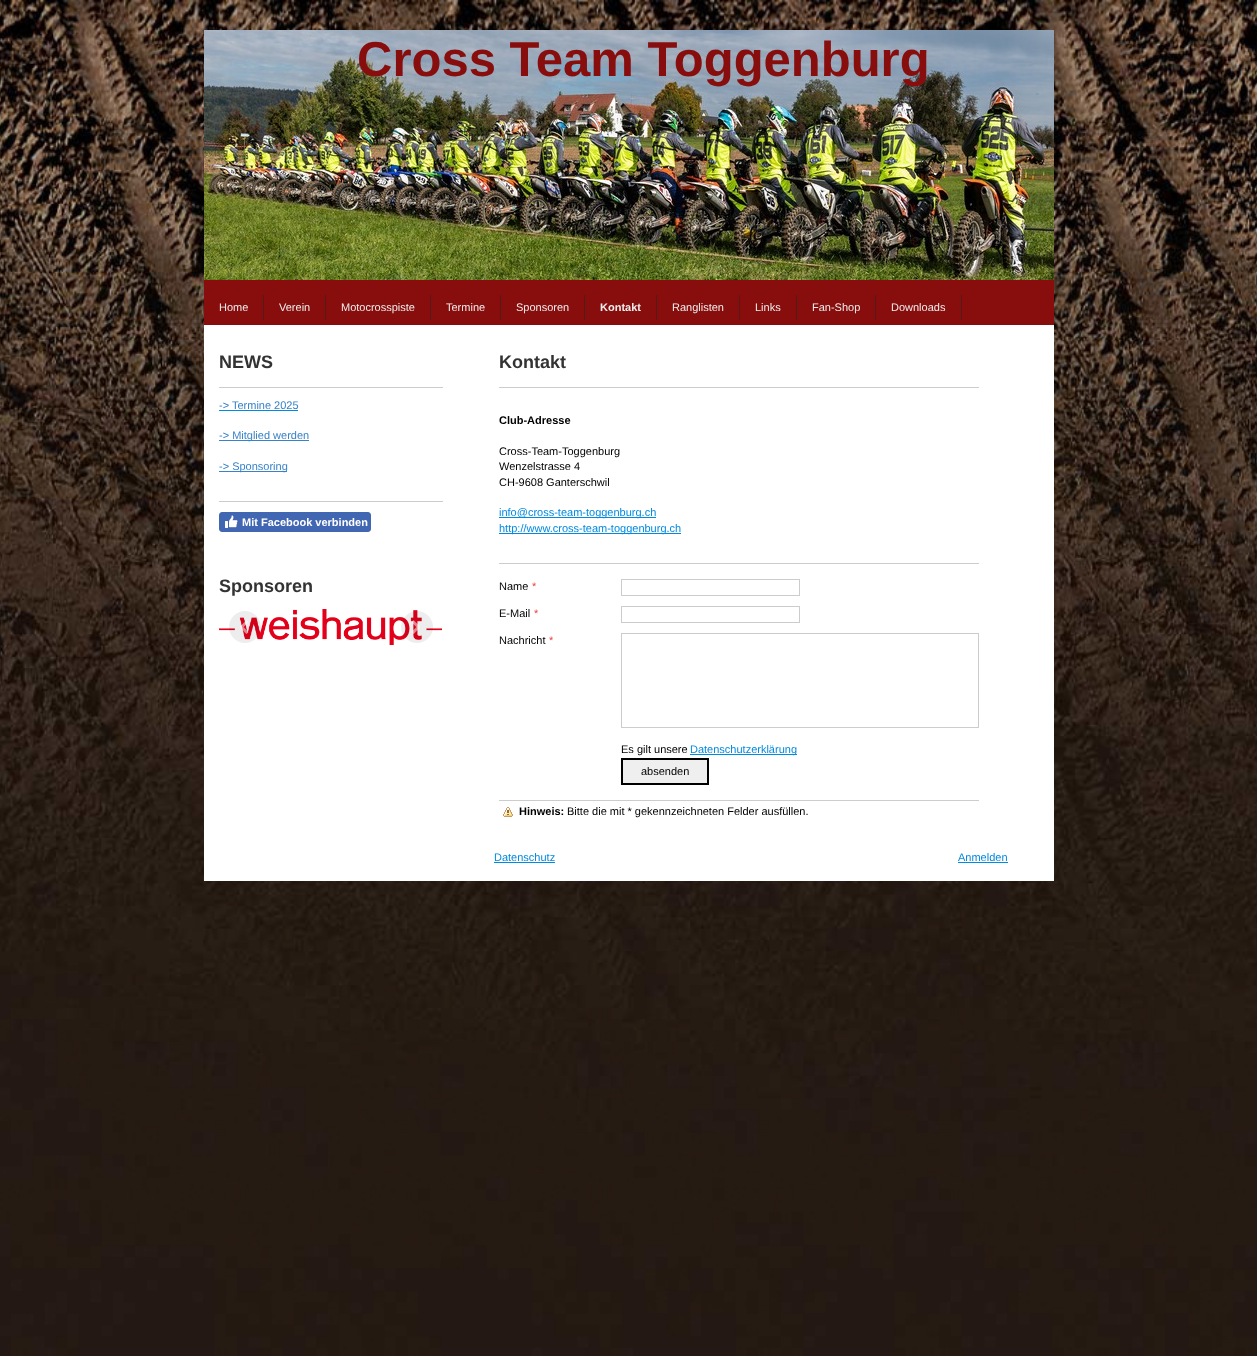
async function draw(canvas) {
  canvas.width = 1257
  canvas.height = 1356
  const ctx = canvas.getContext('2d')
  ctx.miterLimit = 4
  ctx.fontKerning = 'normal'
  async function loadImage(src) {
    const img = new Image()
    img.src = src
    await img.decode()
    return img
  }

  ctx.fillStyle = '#fff'
  ctx.fillRect(0, 0, 1257, 1356)
  ctx.drawImage(await loadImage('image0.png'), 0, 0, 1257, 1356)
  ctx.drawImage(await loadImage('image1.png'), 204, 30, 850, 250)
  ctx.font = 'bold 49px Liberation Sans'
  ctx.fillStyle = '#880d0d'
  ctx.fillText('Cross Team Toggenburg', 357, 76)
  ctx.fillRect(204, 280, 850, 45)
  ctx.fillStyle = '#551919'
  ctx.fillRect(263, 295, 1, 25)
  ctx.font = '11px Liberation Sans'
  ctx.fillStyle = '#eee'
  ctx.fillText('Home', 219, 311)
  ctx.fillStyle = '#551919'
  ctx.fillRect(325, 295, 1, 25)
  ctx.fillStyle = '#eee'
  ctx.fillText('Verein', 279, 311)
  ctx.fillStyle = '#551919'
  ctx.fillRect(430, 295, 1, 25)
  ctx.fillStyle = '#eee'
  ctx.fillText('Motocrosspiste', 341, 311)
  ctx.fillStyle = '#551919'
  ctx.fillRect(500, 295, 1, 25)
  ctx.fillStyle = '#eee'
  ctx.fillText('Termine', 446, 311)
  ctx.fillStyle = '#551919'
  ctx.fillRect(584, 295, 1, 25)
  ctx.fillStyle = '#eee'
  ctx.fillText('Sponsoren', 516, 311)
  ctx.fillStyle = '#551919'
  ctx.fillRect(656, 295, 1, 25)
  ctx.font = 'bold 11px Liberation Sans'
  ctx.fillStyle = '#eee'
  ctx.fillText('Kontakt', 600, 311)
  ctx.fillStyle = '#551919'
  ctx.fillRect(739, 295, 1, 25)
  ctx.font = '11px Liberation Sans'
  ctx.fillStyle = '#eee'
  ctx.fillText('Ranglisten', 672, 311)
  ctx.fillStyle = '#551919'
  ctx.fillRect(796, 295, 1, 25)
  ctx.fillStyle = '#eee'
  ctx.fillText('Links', 755, 311)
  ctx.fillStyle = '#551919'
  ctx.fillRect(875, 295, 1, 25)
  ctx.fillStyle = '#eee'
  ctx.fillText('Fan-Shop', 812, 311)
  ctx.fillStyle = '#551919'
  ctx.fillRect(961, 295, 1, 25)
  ctx.fillStyle = '#eee'
  ctx.fillText('Downloads', 891, 311)
  ctx.fillStyle = '#fff'
  ctx.fillRect(204, 325, 850, 556)
  ctx.font = 'bold 18px Liberation Sans'
  ctx.fillStyle = '#333'
  ctx.fillText('NEWS', 219, 368)
  ctx.fillStyle = '#ccc'
  ctx.fillRect(219, 387, 224, 1)
  ctx.font = '11px Liberation Sans'
  ctx.fillStyle = '#3782c8'
  ctx.fillText('-> Termine 2025', 219, 409)
  ctx.fillStyle = '#008ae0'
  ctx.fillRect(219, 410, 79, 1)
  ctx.fillStyle = '#3782c8'
  ctx.fillRect(219, 440, 90, 1)
  ctx.fillText('-> Mitglied werden', 219, 439)
  ctx.fillRect(219, 471, 68, 1)
  ctx.fillText('-> Sponsoring', 219, 470)
  ctx.fillStyle = '#ccc'
  ctx.fillRect(219, 501, 224, 1)
  ctx.fillStyle = '#4267b2'
  ctx.beginPath()
  ctx.roundRect(219.5, 512.5, 151, 19, 2.5)
  ctx.fill()
  ctx.strokeStyle = '#4267b2'
  ctx.stroke()
  ctx.drawImage(await loadImage('image2.png'), 225, 515, 13, 13)
  ctx.font = 'bold 11px Liberation Sans'
  ctx.fillStyle = '#fff'
  ctx.fillText('Mit Facebook verbinden', 242, 526)
  ctx.font = 'bold 18px Liberation Sans'
  ctx.fillStyle = '#333'
  ctx.fillText('Sponsoren', 219, 592)
  ctx.drawImage(await loadImage('image3.png'), 219, 609, 223, 36)
  ctx.fillStyle = '#00000012'
  ctx.beginPath()
  ctx.arc(245, 627, 16, 0, 2 * Math.PI)
  ctx.fill()
  ctx.drawImage(await loadImage('image4.png'), 240, 620, 9, 14)
  ctx.beginPath()
  ctx.arc(417, 627, 16, 0, 2 * Math.PI)
  ctx.fill()
  ctx.drawImage(await loadImage('image5.png'), 412, 620, 8, 14)
  ctx.fillStyle = '#333'
  ctx.fillText('Kontakt', 499, 368)
  ctx.fillStyle = '#ccc'
  ctx.fillRect(499, 387, 480, 1)
  ctx.font = 'bold 11px Liberation Sans'
  ctx.fillStyle = '#000'
  ctx.fillText('Club-Adresse', 499, 424)
  ctx.font = '11px Liberation Sans'
  ctx.fillText('Cross-Team-Toggenburg', 499, 455)
  ctx.fillText('Wenzelstrasse 4', 499, 470)
  ctx.fillText('CH-9608 Ganterschwil', 499, 486)
  ctx.fillStyle = '#008ae0'
  ctx.fillRect(499, 517, 157, 1)
  ctx.fillText('info@cross-team-toggenburg.ch', 499, 516)
  ctx.fillRect(499, 533, 182, 1)
  ctx.fillText('http://www.cross-team-toggenburg.ch', 499, 532)
  ctx.fillStyle = '#ccc'
  ctx.fillRect(499, 563, 480, 1)
  ctx.fillStyle = '#000'
  ctx.fillText('Name', 499, 590)
  ctx.fillStyle = '#eb433e'
  ctx.fillText('*', 532, 590)
  ctx.strokeStyle = '#ccc'
  ctx.strokeRect(621.5, 579.5, 178, 16)
  ctx.fillStyle = '#000'
  ctx.fillText('E-Mail', 499, 617)
  ctx.fillStyle = '#eb433e'
  ctx.fillText('*', 534, 617)
  ctx.strokeRect(621.5, 606.5, 178, 16)
  ctx.fillStyle = '#000'
  ctx.fillText('Nachricht', 499, 644)
  ctx.fillStyle = '#eb433e'
  ctx.fillText('*', 549, 644)
  ctx.strokeRect(621.5, 633.5, 357, 94)
  ctx.fillStyle = '#000'
  ctx.fillText('Es gilt unsere', 621, 753)
  ctx.fillStyle = '#008ae0'
  ctx.fillRect(690, 754, 107, 1)
  ctx.fillText('Datenschutzerklärung', 690, 753)
  ctx.fillStyle = '#efefef'
  ctx.beginPath()
  ctx.rect(622, 759, 86, 25)
  ctx.fill()
  ctx.strokeStyle = '#000'
  ctx.lineWidth = 2
  ctx.stroke()
  ctx.fillStyle = '#000'
  ctx.fillText('absenden', 641, 775)
  ctx.drawImage(await loadImage('image6.png'), 503, 807, 10, 10)
  ctx.fillStyle = '#ccc'
  ctx.fillRect(499, 800, 480, 1)
  ctx.font = 'bold 11px Liberation Sans'
  ctx.fillStyle = '#000'
  ctx.fillText('Hinweis:', 519, 815)
  ctx.font = '11px Liberation Sans'
  ctx.fillText('Bitte die mit * gekennzeichneten Felder ausfüllen.', 567, 815)
  ctx.fillStyle = '#008ae0'
  ctx.fillText('Datenschutz', 494, 861)
  ctx.fillRect(494, 862, 61, 1)
  ctx.fillText('Anmelden', 958, 861)
  ctx.fillRect(958, 862, 50, 1)
}

draw(document.querySelector('canvas'))
